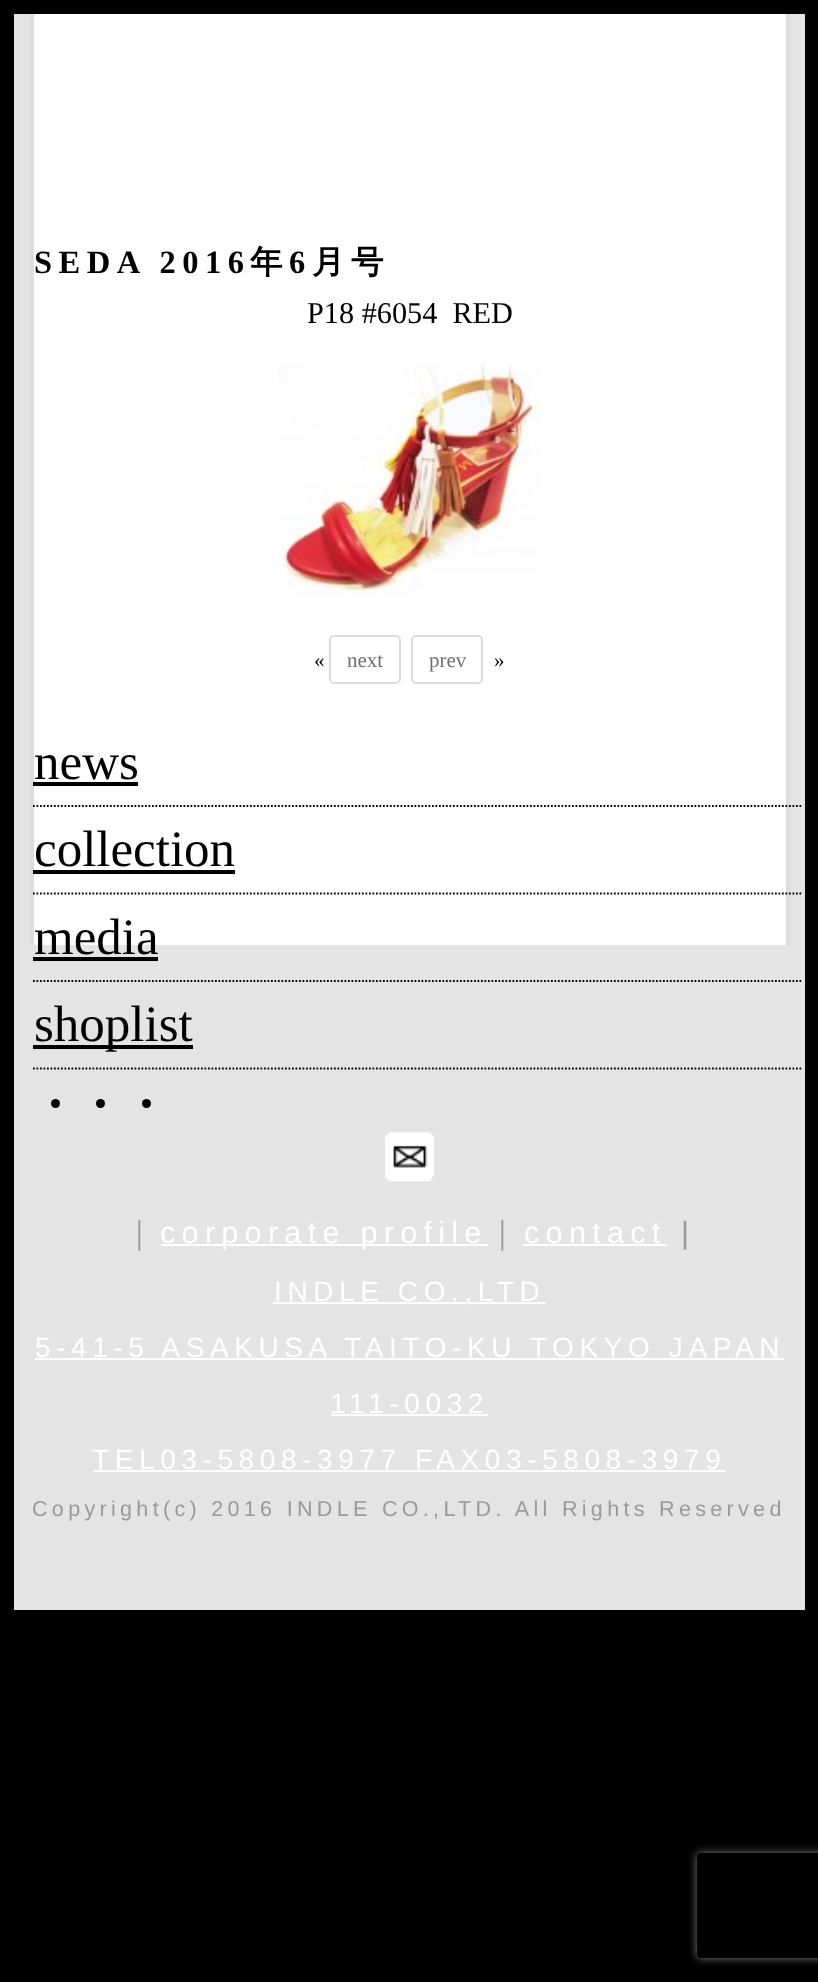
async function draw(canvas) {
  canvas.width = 818
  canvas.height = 1982
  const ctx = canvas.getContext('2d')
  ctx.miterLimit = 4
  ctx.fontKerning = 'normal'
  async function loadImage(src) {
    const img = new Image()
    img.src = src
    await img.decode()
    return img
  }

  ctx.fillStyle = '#000'
  ctx.fillRect(0, 0, 818, 1982)
  ctx.fillStyle = '#e4e4e4'
  ctx.fillRect(14, 14, 791, 1596)
  ctx.fillStyle = '#fff'
  ctx.fillRect(34, 14, 752, 931)
  ctx.fillStyle = '#ddd'
  ctx.fillRect(786, 14, 4, 931)
  ctx.fillRect(30, 14, 4, 931)
  ctx.letterSpacing = '6.5px'
  ctx.font = 'bold 32.5px Liberation Serif'
  ctx.fillStyle = '#000'
  ctx.fillText('SEDA 2016', 34, 273)
  ctx.font = 'bold 32.5px WenQuanYi Zen Hei'
  ctx.fillText('年', 250, 273)
  ctx.font = 'bold 32.5px Liberation Serif'
  ctx.fillText('6', 289, 273)
  ctx.font = 'bold 32.5px WenQuanYi Zen Hei'
  ctx.fillText('月号', 312, 273)
  ctx.letterSpacing = '0px'
  ctx.font = '30.25px Liberation Serif'
  ctx.fillText('P18 #6054  RED', 307, 323)
  ctx.drawImage(await loadImage('image0.png'), 278, 363, 263, 234)
  ctx.font = '21px Liberation Serif'
  ctx.fillText('«', 314, 667)
  ctx.beginPath()
  ctx.roundRect(330, 636, 70, 47, 4)
  ctx.strokeStyle = '#dcdcdc'
  ctx.lineWidth = 2
  ctx.stroke()
  ctx.fillStyle = '#707070'
  ctx.fillText('next', 347, 667)
  ctx.beginPath()
  ctx.roundRect(412, 636, 70, 47, 4)
  ctx.stroke()
  ctx.fillText('prev', 429, 667)
  ctx.fillStyle = '#000'
  ctx.fillText('»', 494, 667)
  ctx.beginPath()
  ctx.moveTo(33, 806)
  ctx.lineTo(803, 806)
  ctx.strokeStyle = '#000'
  ctx.lineWidth = 1.8
  ctx.setLineDash([1.75, 1.75])
  ctx.stroke()
  ctx.font = '51px Liberation Serif'
  ctx.fillText('news', 34, 779)
  ctx.fillRect(33, 782, 105, 4)
  ctx.beginPath()
  ctx.moveTo(33, 893.5)
  ctx.lineTo(803, 893.5)
  ctx.stroke()
  ctx.fillText('collection', 34, 866)
  ctx.fillRect(33, 870, 202, 4)
  ctx.beginPath()
  ctx.moveTo(33, 981)
  ctx.lineTo(803, 981)
  ctx.stroke()
  ctx.fillText('media', 34, 954)
  ctx.fillRect(33, 957, 125, 4)
  ctx.beginPath()
  ctx.moveTo(33, 1068.5)
  ctx.lineTo(803, 1068.5)
  ctx.stroke()
  ctx.fillRect(33, 1045, 160, 4)
  ctx.fillText('shoplist', 34, 1041)
  ctx.beginPath()
  ctx.arc(55.5, 1103.5, 4.5, 0, 2 * Math.PI)
  ctx.fill()
  ctx.beginPath()
  ctx.arc(100.5, 1103.5, 4.5, 0, 2 * Math.PI)
  ctx.fill()
  ctx.beginPath()
  ctx.arc(146.5, 1103.5, 4.5, 0, 2 * Math.PI)
  ctx.fill()
  ctx.drawImage(await loadImage('image1.png'), 385, 1132, 49, 50)
  ctx.letterSpacing = '6.2px'
  ctx.font = '500 30.75px WenQuanYi Zen Hei'
  ctx.fillStyle = '#999'
  ctx.fillText('｜', 124, 1243)
  ctx.fillStyle = '#fff'
  ctx.fillRect(161, 1244, 327, 2)
  ctx.font = '30.75px Liberation Sans'
  ctx.fillText('corporate profile', 160, 1243)
  ctx.font = '500 30.75px WenQuanYi Zen Hei'
  ctx.fillStyle = '#999'
  ctx.fillText('｜', 487, 1243)
  ctx.font = '30.75px Liberation Sans'
  ctx.fillStyle = '#fff'
  ctx.fillText('contact', 524, 1243)
  ctx.fillRect(523, 1244, 144, 2)
  ctx.fillStyle = '#999'
  ctx.fillText('|', 681, 1243)
  ctx.fillStyle = '#fff'
  ctx.fillRect(273, 1302, 273, 2)
  ctx.letterSpacing = '5.6px'
  ctx.font = '28px Liberation Sans'
  ctx.fillText('INDLE CO.,LTD', 274, 1301)
  ctx.fillText('5-41-5 ASAKUSA TAITO-KU TOKYO JAPAN', 35, 1357)
  ctx.fillRect(35, 1358, 749, 2)
  ctx.fillText('111-0032', 330, 1413)
  ctx.fillRect(331, 1414, 157, 2)
  ctx.fillText('TEL03-5808-3977 FAX03-5808-3979', 92, 1469)
  ctx.fillRect(93, 1470, 633, 2)
  ctx.letterSpacing = '4.3px'
  ctx.font = '21.55px Liberation Sans'
  ctx.fillStyle = '#999'
  ctx.fillText('Copyright(c) 2016 INDLE CO.,LTD. All Rights Reserved', 32, 1516)
  ctx.save()
  ctx.beginPath()
  ctx.moveTo(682, 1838)
  ctx.lineTo(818, 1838)
  ctx.lineTo(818, 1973)
  ctx.lineTo(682, 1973)
  ctx.closePath()
  ctx.moveTo(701, 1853)
  ctx.lineTo(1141, 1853)
  ctx.bezierCurveTo(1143, 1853, 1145, 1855, 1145, 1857)
  ctx.lineTo(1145, 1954)
  ctx.bezierCurveTo(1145, 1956, 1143, 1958, 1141, 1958)
  ctx.lineTo(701, 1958)
  ctx.bezierCurveTo(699, 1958, 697, 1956, 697, 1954)
  ctx.lineTo(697, 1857)
  ctx.bezierCurveTo(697, 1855, 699, 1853, 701, 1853)
  ctx.closePath()
  ctx.clip('evenodd')
  ctx.fillStyle = '#808080'
  ctx.filter = 'blur(4.5px)'
  ctx.beginPath()
  ctx.roundRect(697, 1853, 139, 105, 4)
  ctx.fill()
  ctx.filter = 'none'
  ctx.restore()
}

draw(document.querySelector('canvas'))
